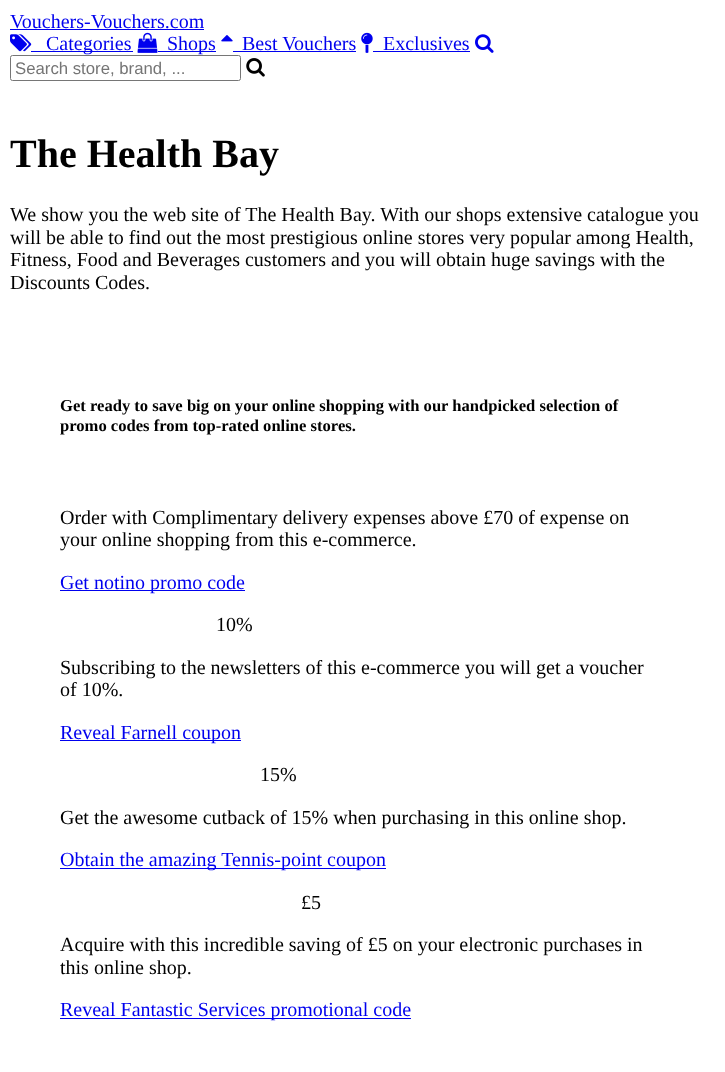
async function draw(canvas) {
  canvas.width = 725
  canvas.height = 1072
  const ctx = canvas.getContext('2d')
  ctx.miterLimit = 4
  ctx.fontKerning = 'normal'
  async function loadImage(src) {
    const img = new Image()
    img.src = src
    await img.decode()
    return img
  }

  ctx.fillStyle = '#fff'
  ctx.fillRect(0, 0, 725, 1072)
  ctx.font = '20px Liberation Serif'
  ctx.fillStyle = '#00e'
  ctx.fillText('Vouchers-Vouchers.com', 10, 28)
  ctx.fillRect(10, 29, 194, 1)
  ctx.drawImage(await loadImage('image0.png'), 10, 34, 22, 18)
  ctx.fillRect(31, 51, 102, 1)
  ctx.fillText('Categories', 46, 50)
  ctx.drawImage(await loadImage('image1.png'), 137, 32, 21, 21)
  ctx.fillRect(158, 51, 58, 1)
  ctx.fillText('Shops', 167, 50)
  ctx.drawImage(await loadImage('image2.png'), 221, 35, 12, 7)
  ctx.fillText('Best Vouchers', 242, 50)
  ctx.fillRect(233, 51, 123, 1)
  ctx.drawImage(await loadImage('image3.png'), 361, 32, 12, 21)
  ctx.fillText('Exclusives', 383, 50)
  ctx.fillRect(373, 51, 97, 1)
  ctx.drawImage(await loadImage('image4.png'), 475, 34, 19, 19)
  ctx.beginPath()
  ctx.roundRect(10.5, 55.5, 230, 25, 2)
  ctx.strokeStyle = '#767676'
  ctx.stroke()
  ctx.font = '16.75px Liberation Sans'
  ctx.fillStyle = '#757575'
  ctx.fillText('Search store, brand, ...', 15, 74)
  ctx.drawImage(await loadImage('image5.png'), 246, 58, 19, 19)
  ctx.font = 'bold 40px Liberation Serif'
  ctx.fillStyle = '#000'
  ctx.fillText('The Health Bay', 10, 167)
  ctx.font = '20px Liberation Serif'
  ctx.fillText('We show you the web site of The Health Bay. With our shops extensive catalogue you', 10, 221)
  ctx.fillText('will be able to find out the most prestigious online stores very popular among Health,', 10, 244)
  ctx.fillText('Fitness, Food and Beverages customers and you will obtain huge savings with the', 10, 266)
  ctx.fillText('Discounts Codes.', 10, 289)
  ctx.font = 'bold 16.6px Liberation Serif'
  ctx.fillText('Get ready to save big on your online shopping with our handpicked selection of', 60, 411)
  ctx.fillText('promo codes from top-rated online stores.', 60, 431)
  ctx.font = '20px Liberation Serif'
  ctx.fillText('Order with Complimentary delivery expenses above £70 of expense on', 60, 524)
  ctx.fillText('your online shopping from this e-commerce.', 60, 546)
  ctx.fillStyle = '#00e'
  ctx.fillRect(60, 590, 185, 1)
  ctx.fillText('Get notino promo code', 60, 589)
  ctx.fillStyle = '#000'
  ctx.fillText('10%', 216, 631)
  ctx.fillText('Subscribing to the newsletters of this e-commerce you will get a voucher', 60, 674)
  ctx.fillText('of 10%.', 60, 696)
  ctx.fillStyle = '#00e'
  ctx.fillRect(60, 740, 181, 1)
  ctx.fillText('Reveal Farnell coupon', 60, 739)
  ctx.fillStyle = '#000'
  ctx.fillText('15%', 260, 781)
  ctx.fillText('Get the awesome cutback of 15% when purchasing in this online shop.', 60, 824)
  ctx.fillStyle = '#00e'
  ctx.fillRect(60, 868, 326, 1)
  ctx.fillText('Obtain the amazing Tennis-point coupon', 60, 866)
  ctx.fillStyle = '#000'
  ctx.fillText('£5', 301, 909)
  ctx.fillText('Acquire with this incredible saving of £5 on your electronic purchases in', 60, 951)
  ctx.fillText('this online shop.', 60, 974)
  ctx.fillStyle = '#00e'
  ctx.fillRect(60, 1018, 351, 1)
  ctx.fillText('Reveal Fantastic Services promotional code', 60, 1016)
}

draw(document.querySelector('canvas'))
